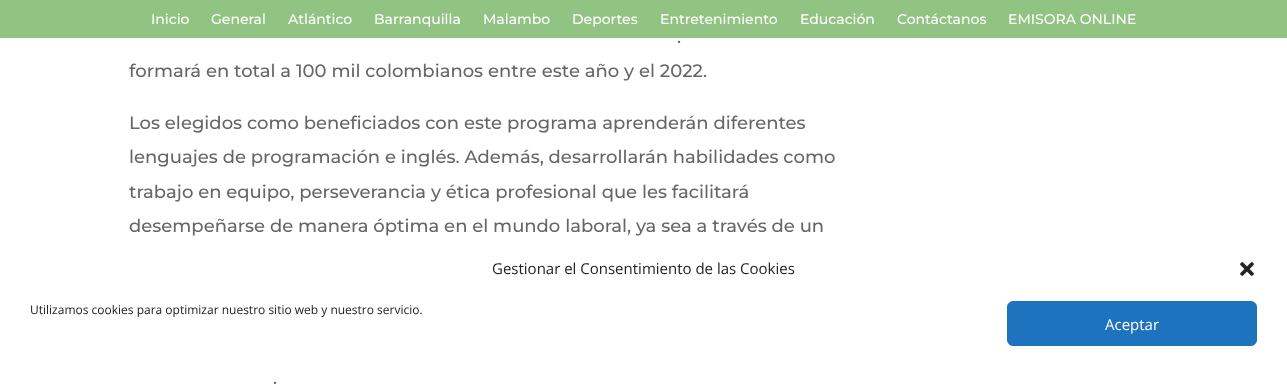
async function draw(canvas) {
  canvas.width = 1287
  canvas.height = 391
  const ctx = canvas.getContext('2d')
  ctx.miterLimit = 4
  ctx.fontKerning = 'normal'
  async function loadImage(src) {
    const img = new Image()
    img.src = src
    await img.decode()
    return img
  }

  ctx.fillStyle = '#fff'
  ctx.fillRect(0, 0, 1287, 391)
  ctx.fillStyle = '#91c483'
  ctx.fillRect(0, 0, 1287, 38)
  ctx.font = '500 14px Montserrat'
  ctx.fillStyle = '#fff'
  ctx.fillText('Inicio', 151, 24)
  ctx.fillText('General', 211, 24)
  ctx.fillText('Atlántico', 288, 24)
  ctx.fillText('Barranquilla', 374, 24)
  ctx.fillText('Malambo', 483, 24)
  ctx.fillText('Deportes', 572, 24)
  ctx.fillText('Entretenimiento', 660, 24)
  ctx.fillText('Educación', 800, 24)
  ctx.fillText('Contáctanos', 897, 24)
  ctx.fillText('EMISORA ONLINE', 1008, 24)
  ctx.font = '500 18px Montserrat'
  ctx.fillStyle = '#666'
  ctx.fillText('.', 677, 43)
  ctx.fillText('formará en total a 100 mil colombianos entre este año y el 2022.', 129, 77)
  ctx.fillText('Los elegidos como beneficiados con este programa aprenderán diferentes', 129, 129)
  ctx.fillText('lenguajes de programación e inglés. Además, desarrollarán habilidades como', 129, 163)
  ctx.fillText('trabajo en equipo, perseverancia y ética profesional que les facilitará', 129, 198)
  ctx.fillText('desempeñarse de manera óptima en el mundo laboral, ya sea a través de un', 129, 232)
  ctx.fillText('.', 273, 384)
  ctx.font = '15px Open Sans'
  ctx.fillStyle = '#222'
  ctx.fillText('Gestionar el Consentimiento de las Cookies', 492, 274)
  ctx.drawImage(await loadImage('image0.png'), 1240, 262, 14, 14)
  ctx.font = '12px Open Sans'
  ctx.fillText('Utilizamos cookies para optimizar nuestro sitio web y nuestro servicio.', 30, 314)
  ctx.fillStyle = '#1e73be'
  ctx.beginPath()
  ctx.roundRect(1007.5, 301.5, 249, 44, 5.5)
  ctx.fill()
  ctx.strokeStyle = '#1e73be'
  ctx.stroke()
  ctx.font = '15px Open Sans'
  ctx.fillStyle = '#fff'
  ctx.fillText('Aceptar', 1105, 330)
}

draw(document.querySelector('canvas'))
